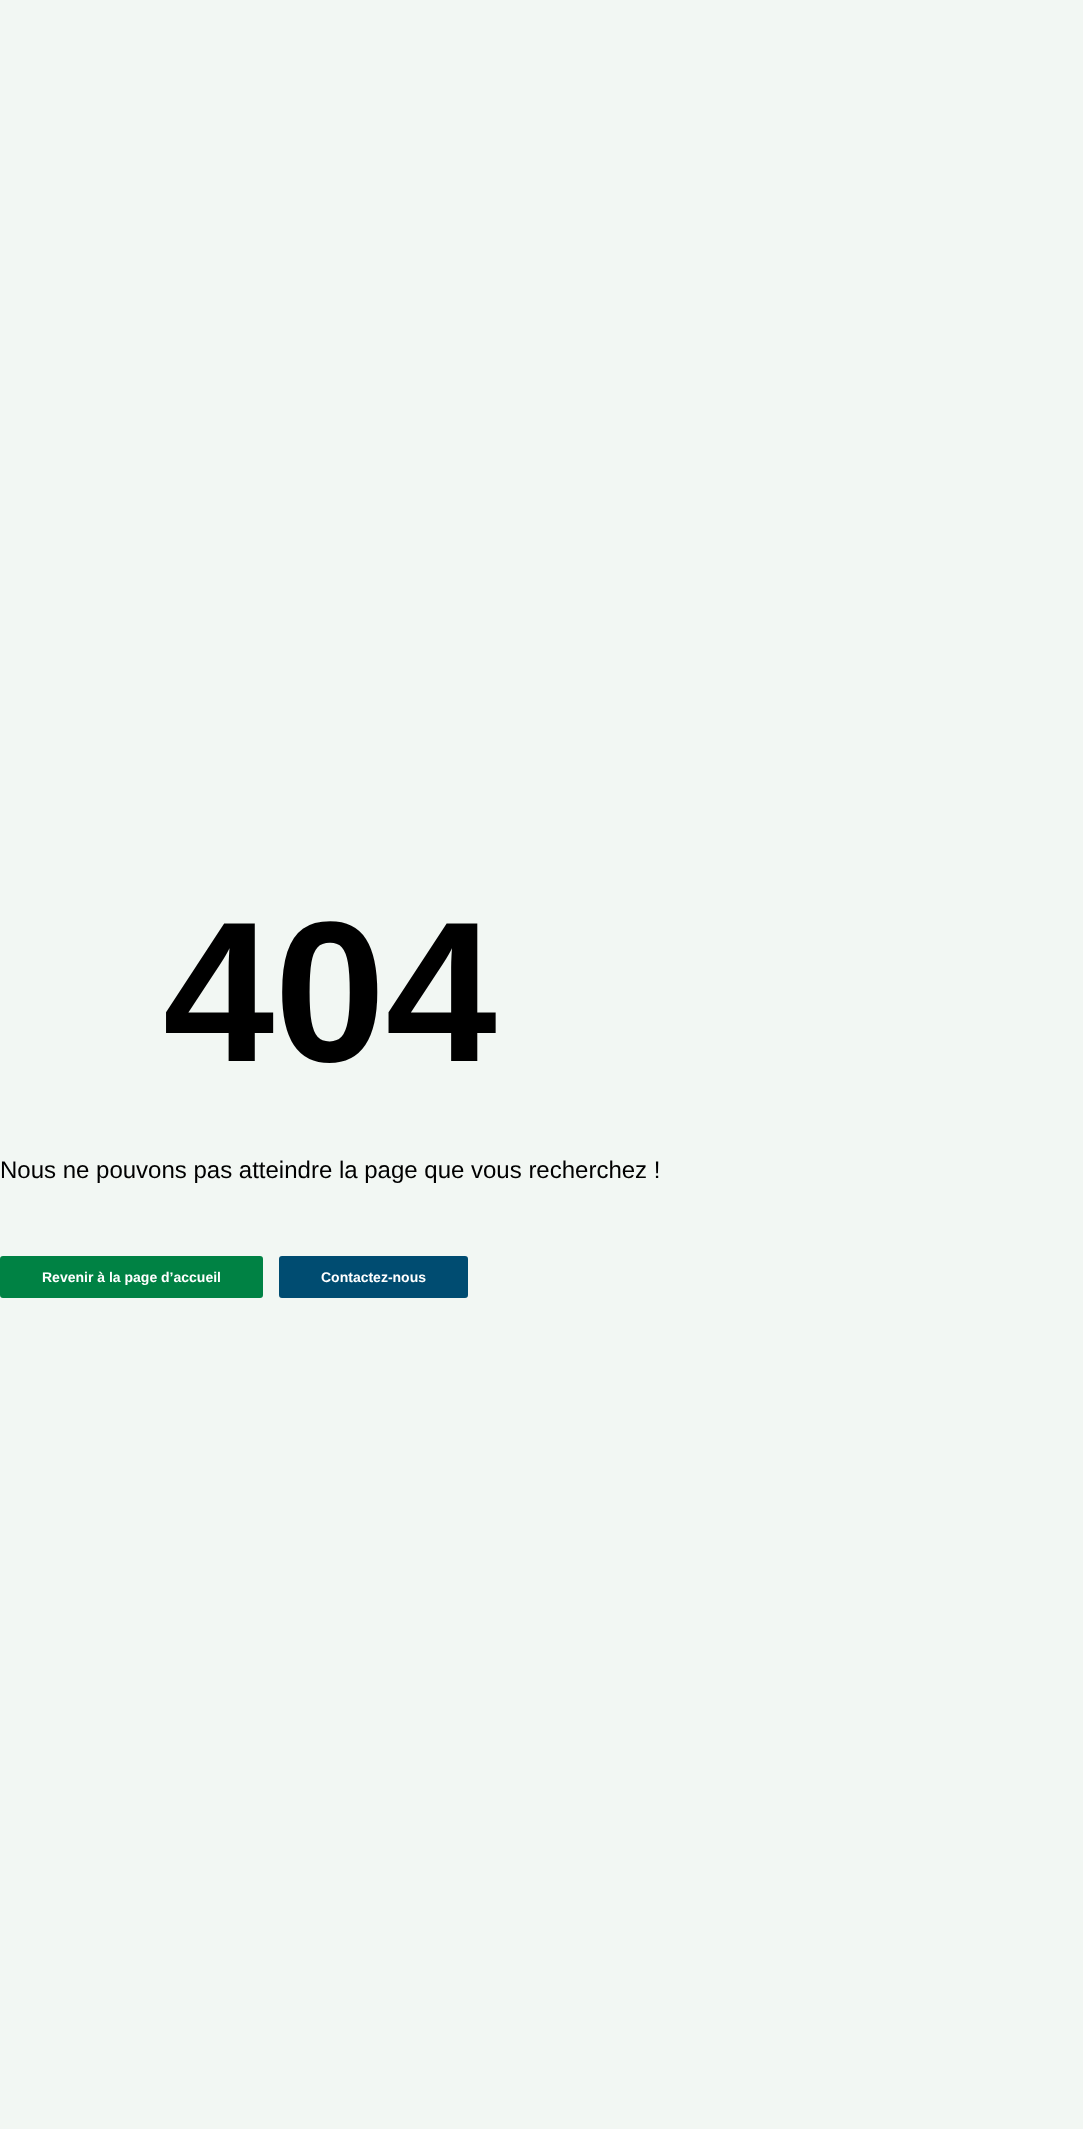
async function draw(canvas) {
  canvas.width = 1083
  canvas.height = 2129
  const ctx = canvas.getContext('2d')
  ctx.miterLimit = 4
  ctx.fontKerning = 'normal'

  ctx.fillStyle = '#f2f7f3'
  ctx.fillRect(0, 0, 1083, 2129)
  ctx.font = 'bold 200px Liberation Sans'
  ctx.fillStyle = '#000'
  ctx.fillText('404', 163, 1061)
  ctx.font = '24px Liberation Sans'
  ctx.fillText('Nous ne pouvons pas atteindre la page que vous recherchez !', 0, 1178)
  ctx.fillStyle = '#008244'
  ctx.beginPath()
  ctx.roundRect(1, 1257, 261, 40, 2)
  ctx.fill()
  ctx.strokeStyle = '#008244'
  ctx.lineWidth = 2
  ctx.stroke()
  ctx.font = 'bold 14px Liberation Sans'
  ctx.fillStyle = '#fff'
  ctx.fillText('Revenir à la page d’accueil', 42, 1282)
  ctx.fillStyle = '#004c71'
  ctx.beginPath()
  ctx.roundRect(280, 1257, 187, 40, 2)
  ctx.fill()
  ctx.strokeStyle = '#004c71'
  ctx.stroke()
  ctx.fillStyle = '#fff'
  ctx.fillText('Contactez-nous', 321, 1282)
}

draw(document.querySelector('canvas'))
